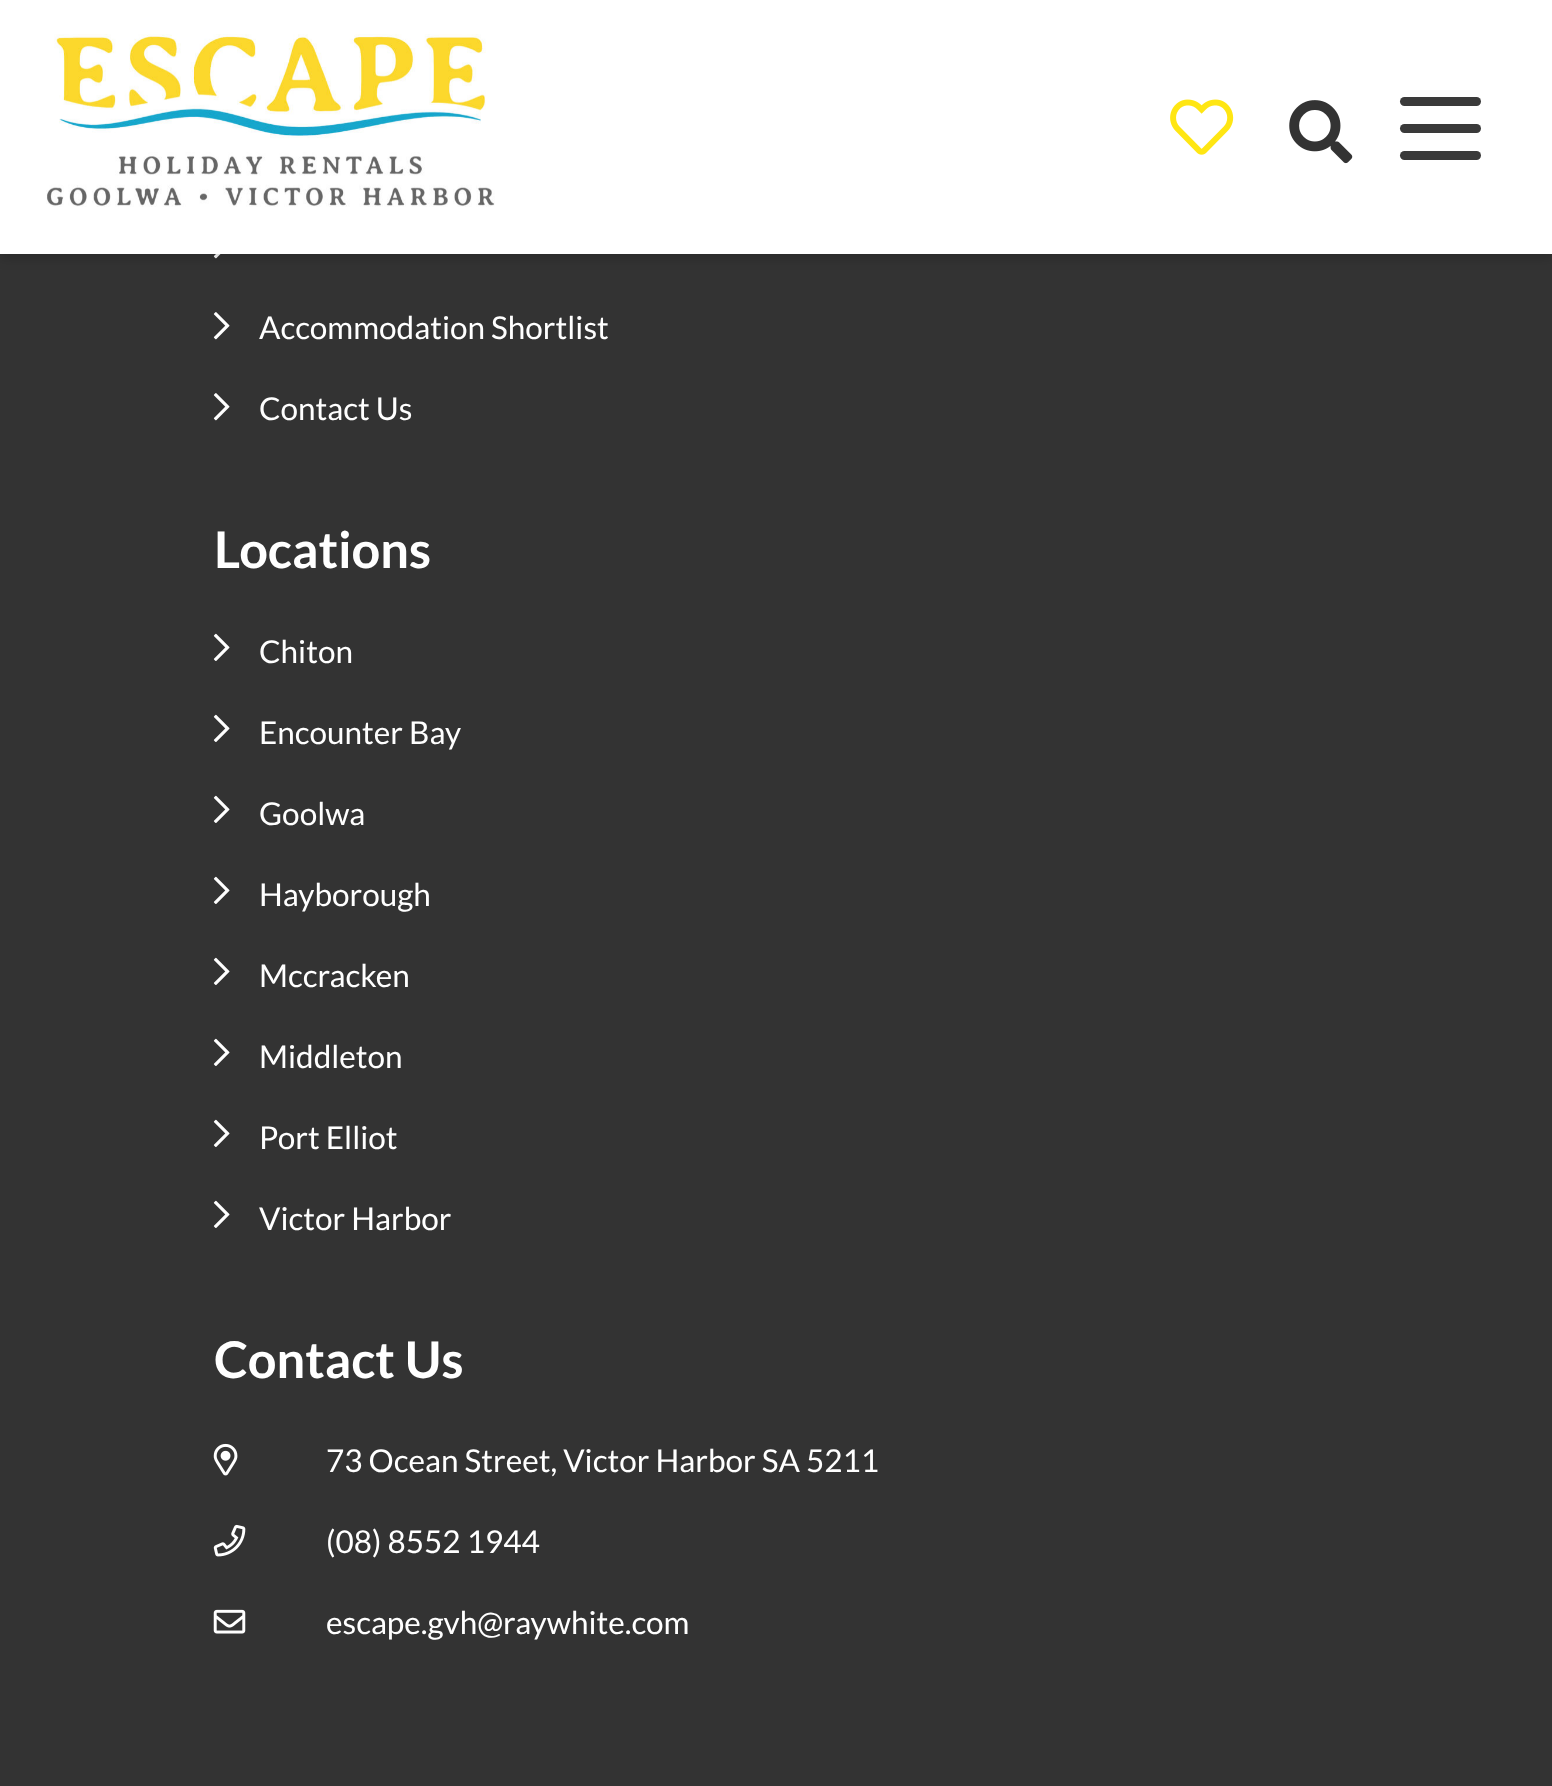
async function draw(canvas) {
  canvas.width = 1552
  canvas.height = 1786
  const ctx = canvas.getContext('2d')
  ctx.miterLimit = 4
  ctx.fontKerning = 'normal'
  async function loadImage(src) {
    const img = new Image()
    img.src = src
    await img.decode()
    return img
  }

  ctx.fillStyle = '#333'
  ctx.fillRect(0, 0, 1552, 1786)
  ctx.drawImage(await loadImage('image3.png'), 213, 254, 8, 5)
  ctx.fillStyle = '#00000029'
  ctx.filter = 'blur(5.5px)'
  ctx.beginPath()
  ctx.rect(0, 5, 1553, 254)
  ctx.fill()
  ctx.filter = 'none'
  ctx.fillStyle = '#fff'
  ctx.fillRect(0, 0, 1552, 254)
  ctx.drawImage(await loadImage('image0.png'), 46, 34, 449, 173)
  ctx.drawImage(await loadImage('image1.png'), 1170, 99, 64, 56)
  ctx.drawImage(await loadImage('image2.png'), 1289, 100, 64, 64)
  ctx.fillStyle = '#3a3a3a'
  ctx.beginPath()
  ctx.roundRect(1400, 97, 81, 9, 4.5)
  ctx.fill()
  ctx.beginPath()
  ctx.roundRect(1400, 124, 81, 9, 4.5)
  ctx.fill()
  ctx.beginPath()
  ctx.roundRect(1400, 151, 81, 9, 4.5)
  ctx.fill()
  ctx.drawImage(await loadImage('image4.png'), 213, 312, 17, 28)
  ctx.font = '31.5px Lato'
  ctx.fillStyle = '#fff'
  ctx.fillText('Accommodation Shortlist', 259, 339)
  ctx.drawImage(await loadImage('image4.png'), 213, 393, 17, 28)
  ctx.fillText('Contact Us', 259, 420)
  ctx.font = 'bold 50.5px Lato'
  ctx.fillText('Locations', 214, 568)
  ctx.drawImage(await loadImage('image5.png'), 213, 633, 17, 28)
  ctx.font = '31.5px Lato'
  ctx.fillText('Chiton', 259, 663)
  ctx.drawImage(await loadImage('image5.png'), 213, 714, 17, 28)
  ctx.fillText('Encounter Bay', 259, 744)
  ctx.drawImage(await loadImage('image5.png'), 213, 795, 17, 28)
  ctx.fillText('Goolwa', 259, 825)
  ctx.drawImage(await loadImage('image5.png'), 213, 876, 17, 28)
  ctx.fillText('Hayborough', 259, 906)
  ctx.drawImage(await loadImage('image5.png'), 213, 957, 17, 28)
  ctx.fillText('Mccracken', 259, 987)
  ctx.drawImage(await loadImage('image5.png'), 213, 1038, 17, 28)
  ctx.fillText('Middleton', 259, 1068)
  ctx.drawImage(await loadImage('image5.png'), 213, 1119, 17, 28)
  ctx.fillText('Port Elliot', 259, 1149)
  ctx.drawImage(await loadImage('image5.png'), 213, 1200, 17, 28)
  ctx.fillText('Victor Harbor', 259, 1230)
  ctx.font = 'bold 50.5px Lato'
  ctx.fillText('Contact Us', 214, 1378)
  ctx.drawImage(await loadImage('image6.png'), 213, 1443, 25, 33)
  ctx.font = '31.5px Lato'
  ctx.fillText('73 Ocean Street, Victor Harbor SA 5211', 326, 1472)
  ctx.drawImage(await loadImage('image7.png'), 213, 1524, 33, 33)
  ctx.fillText('(08) 8552 1944', 326, 1553)
  ctx.drawImage(await loadImage('image8.png'), 213, 1609, 33, 25)
  ctx.fillText('escape.gvh@raywhite.com', 326, 1634)
}

draw(document.querySelector('canvas'))
